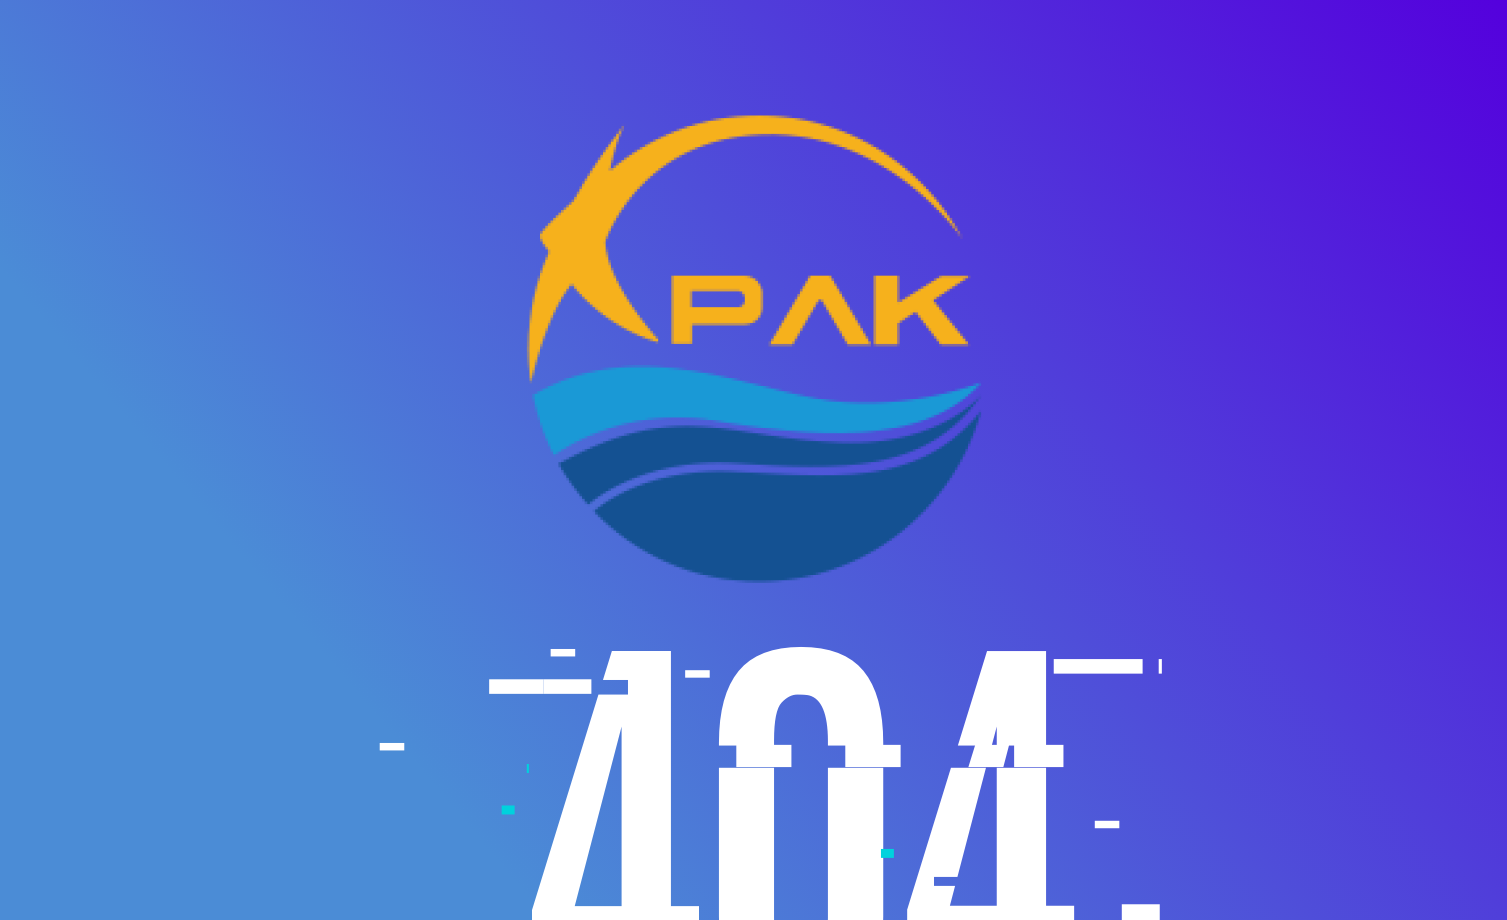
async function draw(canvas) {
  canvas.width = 1507
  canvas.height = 920
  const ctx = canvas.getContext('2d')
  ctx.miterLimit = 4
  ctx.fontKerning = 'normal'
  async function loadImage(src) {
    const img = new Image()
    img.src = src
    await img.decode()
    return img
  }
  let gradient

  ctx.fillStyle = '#fff'
  ctx.fillRect(0, 0, 1507, 920)
  gradient = ctx.createLinearGradient(1422, -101, 85, 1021)
  gradient.addColorStop(0, '#5400dd')
  gradient.addColorStop(0.76, '#4b8cd6')
  ctx.fillStyle = gradient
  ctx.fillRect(0, 0, 1507, 920)
  ctx.drawImage(await loadImage('image0.png'), 526, 115, 456, 468)
  ctx.drawImage(await loadImage('image1.png'), 379, 646, 783, 274)
}

draw(document.querySelector('canvas'))
